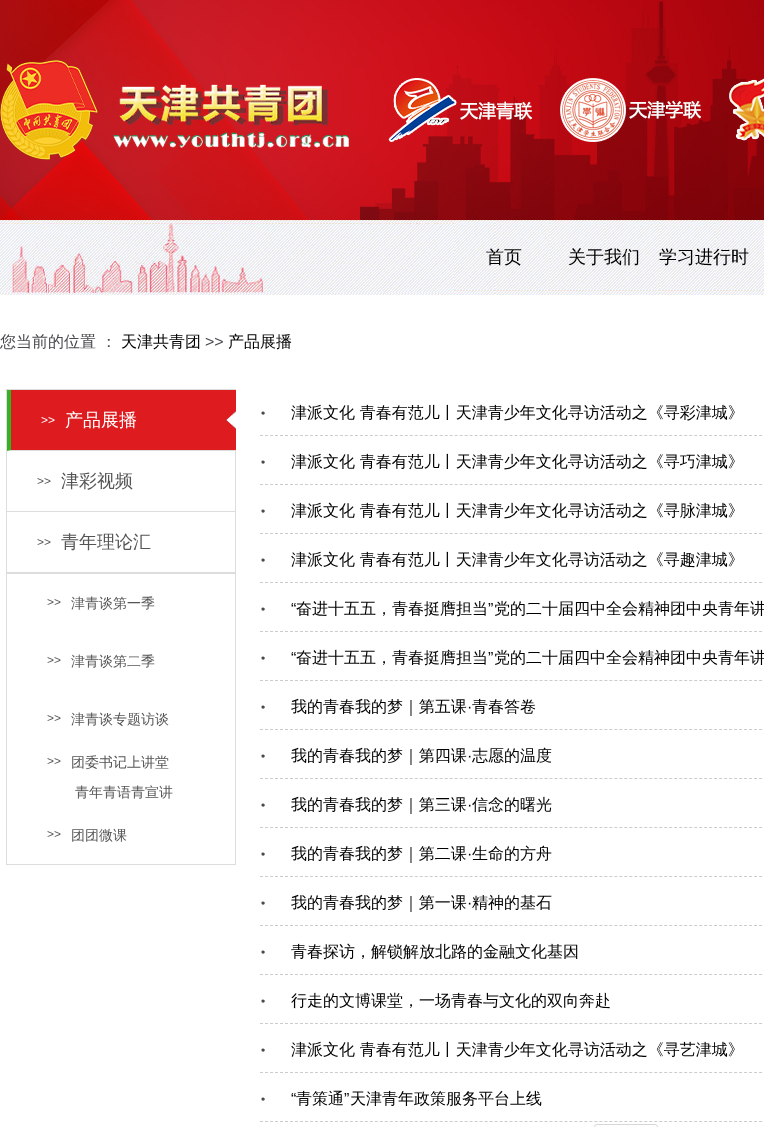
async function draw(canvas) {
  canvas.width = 764
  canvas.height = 1127
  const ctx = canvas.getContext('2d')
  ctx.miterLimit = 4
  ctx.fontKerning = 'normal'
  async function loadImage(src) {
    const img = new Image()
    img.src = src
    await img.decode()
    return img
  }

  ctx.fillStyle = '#fff'
  ctx.fillRect(0, 0, 764, 1127)
  ctx.drawImage(await loadImage('image0.png'), 0, 0, 764, 220)
  ctx.drawImage(await loadImage('image1.png'), 0, 220, 764, 75)
  ctx.drawImage(await loadImage('image2.png'), 0, 223, 454, 70)
  ctx.font = '500 18px WenQuanYi Zen Hei'
  ctx.fillStyle = '#000'
  ctx.fillText('首页', 486, 263)
  ctx.fillText('关于我们', 568, 263)
  ctx.fillText('学习进行时', 659, 263)
  ctx.font = '500 16px WenQuanYi Zen Hei'
  ctx.fillStyle = '#474a4d'
  ctx.fillText('您当前的位置 ：', 0, 347)
  ctx.fillStyle = '#000'
  ctx.fillText('天津共青团', 121, 347)
  ctx.font = '16px Liberation Sans'
  ctx.fillStyle = '#474a4d'
  ctx.fillText('>>', 205, 347)
  ctx.font = '500 16px WenQuanYi Zen Hei'
  ctx.fillStyle = '#000'
  ctx.fillText('产品展播', 228, 347)
  ctx.fillStyle = '#ddd'
  ctx.fillRect(6, 389, 230, 1)
  ctx.fillRect(235, 389, 1, 184)
  ctx.fillRect(6, 389, 1, 184)
  ctx.beginPath()
  ctx.moveTo(236, 451)
  ctx.lineTo(7, 451)
  ctx.lineTo(11, 450)
  ctx.lineTo(236, 450)
  ctx.closePath()
  ctx.fill()
  ctx.fillStyle = '#31b324'
  ctx.beginPath()
  ctx.moveTo(7, 451)
  ctx.lineTo(7, 390)
  ctx.lineTo(11, 390)
  ctx.lineTo(11, 450)
  ctx.closePath()
  ctx.fill()
  ctx.fillStyle = '#de1b1f'
  ctx.fillRect(11, 390, 225, 60)
  ctx.drawImage(await loadImage('image3.png'), 226, 411, 10, 18)
  ctx.font = '12px Liberation Sans'
  ctx.fillStyle = '#fff'
  ctx.fillText('>>', 41, 424)
  ctx.font = '500 18px WenQuanYi Zen Hei'
  ctx.fillText('产品展播', 65, 426)
  ctx.fillStyle = '#ddd'
  ctx.fillRect(7, 511, 228, 1)
  ctx.font = '12px Liberation Sans'
  ctx.fillStyle = '#555'
  ctx.fillText('>>', 37, 485)
  ctx.font = '500 18px WenQuanYi Zen Hei'
  ctx.fillText('津彩视频', 61, 487)
  ctx.fillStyle = '#ddd'
  ctx.fillRect(7, 572, 228, 1)
  ctx.font = '12px Liberation Sans'
  ctx.fillStyle = '#555'
  ctx.fillText('>>', 37, 546)
  ctx.font = '500 18px WenQuanYi Zen Hei'
  ctx.fillText('青年理论汇', 61, 548)
  ctx.fillStyle = '#ddd'
  ctx.fillRect(6, 573, 230, 1)
  ctx.fillRect(235, 573, 1, 292)
  ctx.fillRect(6, 573, 1, 292)
  ctx.font = '12px Liberation Sans'
  ctx.fillStyle = '#555'
  ctx.fillText('>>', 47, 606)
  ctx.font = '500 14px WenQuanYi Zen Hei'
  ctx.fillText('津青谈第一季', 71, 608)
  ctx.font = '12px Liberation Sans'
  ctx.fillText('>>', 47, 664)
  ctx.font = '500 14px WenQuanYi Zen Hei'
  ctx.fillText('津青谈第二季', 71, 666)
  ctx.font = '12px Liberation Sans'
  ctx.fillText('>>', 47, 722)
  ctx.font = '500 14px WenQuanYi Zen Hei'
  ctx.fillText('津青谈专题访谈', 71, 724)
  ctx.font = '12px Liberation Sans'
  ctx.fillText('>>', 47, 765)
  ctx.font = '500 14px WenQuanYi Zen Hei'
  ctx.fillText('团委书记上讲堂', 71, 767)
  ctx.fillText('青年青语青宣讲', 75, 797)
  ctx.fillStyle = '#ddd'
  ctx.fillRect(7, 864, 228, 1)
  ctx.font = '12px Liberation Sans'
  ctx.fillStyle = '#555'
  ctx.fillText('>>', 47, 838)
  ctx.font = '500 14px WenQuanYi Zen Hei'
  ctx.fillText('团团微课', 71, 840)
  ctx.beginPath()
  ctx.moveTo(260, 435.5)
  ctx.lineTo(288, 435.5)
  ctx.strokeStyle = '#ccc'
  ctx.setLineDash([3, 2])
  ctx.stroke()
  ctx.font = '12px Liberation Sans'
  ctx.fillStyle = '#474a4d'
  ctx.fillText('•', 261, 417)
  ctx.beginPath()
  ctx.moveTo(290, 435.5)
  ctx.lineTo(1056, 435.5)
  ctx.setLineDash([3, 1.99])
  ctx.stroke()
  ctx.font = '500 16px WenQuanYi Zen Hei'
  ctx.fillStyle = '#000'
  ctx.fillText('津派文化 青春有范儿丨天津青少年文化寻访活动之《寻彩津城》', 291, 418)
  ctx.beginPath()
  ctx.moveTo(260, 484.5)
  ctx.lineTo(288, 484.5)
  ctx.setLineDash([3, 2])
  ctx.stroke()
  ctx.font = '12px Liberation Sans'
  ctx.fillStyle = '#474a4d'
  ctx.fillText('•', 261, 466)
  ctx.beginPath()
  ctx.moveTo(290, 484.5)
  ctx.lineTo(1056, 484.5)
  ctx.setLineDash([3, 1.99])
  ctx.stroke()
  ctx.font = '500 16px WenQuanYi Zen Hei'
  ctx.fillStyle = '#000'
  ctx.fillText('津派文化 青春有范儿丨天津青少年文化寻访活动之《寻巧津城》', 291, 467)
  ctx.beginPath()
  ctx.moveTo(260, 533.5)
  ctx.lineTo(288, 533.5)
  ctx.setLineDash([3, 2])
  ctx.stroke()
  ctx.font = '12px Liberation Sans'
  ctx.fillStyle = '#474a4d'
  ctx.fillText('•', 261, 515)
  ctx.beginPath()
  ctx.moveTo(290, 533.5)
  ctx.lineTo(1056, 533.5)
  ctx.setLineDash([3, 1.99])
  ctx.stroke()
  ctx.font = '500 16px WenQuanYi Zen Hei'
  ctx.fillStyle = '#000'
  ctx.fillText('津派文化 青春有范儿丨天津青少年文化寻访活动之《寻脉津城》', 291, 516)
  ctx.beginPath()
  ctx.moveTo(260, 582.5)
  ctx.lineTo(288, 582.5)
  ctx.setLineDash([3, 2])
  ctx.stroke()
  ctx.font = '12px Liberation Sans'
  ctx.fillStyle = '#474a4d'
  ctx.fillText('•', 261, 564)
  ctx.beginPath()
  ctx.moveTo(290, 582.5)
  ctx.lineTo(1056, 582.5)
  ctx.setLineDash([3, 1.99])
  ctx.stroke()
  ctx.font = '500 16px WenQuanYi Zen Hei'
  ctx.fillStyle = '#000'
  ctx.fillText('津派文化 青春有范儿丨天津青少年文化寻访活动之《寻趣津城》', 291, 565)
  ctx.beginPath()
  ctx.moveTo(260, 631.5)
  ctx.lineTo(288, 631.5)
  ctx.setLineDash([3, 2])
  ctx.stroke()
  ctx.font = '12px Liberation Sans'
  ctx.fillStyle = '#474a4d'
  ctx.fillText('•', 261, 613)
  ctx.beginPath()
  ctx.moveTo(290, 631.5)
  ctx.lineTo(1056, 631.5)
  ctx.setLineDash([3, 1.99])
  ctx.stroke()
  ctx.font = '16px Liberation Sans'
  ctx.fillStyle = '#000'
  ctx.fillText('“', 291, 614)
  ctx.font = '500 16px WenQuanYi Zen Hei'
  ctx.fillText('奋进十五五，青春挺膺担当', 296, 614)
  ctx.font = '16px Liberation Sans'
  ctx.fillText('”', 488, 614)
  ctx.font = '500 16px WenQuanYi Zen Hei'
  ctx.fillText('党的二十届四中全会精神团中央青年讲', 494, 614)
  ctx.beginPath()
  ctx.moveTo(260, 680.5)
  ctx.lineTo(288, 680.5)
  ctx.setLineDash([3, 2])
  ctx.stroke()
  ctx.font = '12px Liberation Sans'
  ctx.fillStyle = '#474a4d'
  ctx.fillText('•', 261, 662)
  ctx.beginPath()
  ctx.moveTo(290, 680.5)
  ctx.lineTo(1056, 680.5)
  ctx.setLineDash([3, 1.99])
  ctx.stroke()
  ctx.font = '16px Liberation Sans'
  ctx.fillStyle = '#000'
  ctx.fillText('“', 291, 663)
  ctx.font = '500 16px WenQuanYi Zen Hei'
  ctx.fillText('奋进十五五，青春挺膺担当', 296, 663)
  ctx.font = '16px Liberation Sans'
  ctx.fillText('”', 488, 663)
  ctx.font = '500 16px WenQuanYi Zen Hei'
  ctx.fillText('党的二十届四中全会精神团中央青年讲', 494, 663)
  ctx.beginPath()
  ctx.moveTo(260, 729.5)
  ctx.lineTo(288, 729.5)
  ctx.setLineDash([3, 2])
  ctx.stroke()
  ctx.font = '12px Liberation Sans'
  ctx.fillStyle = '#474a4d'
  ctx.fillText('•', 261, 711)
  ctx.beginPath()
  ctx.moveTo(290, 729.5)
  ctx.lineTo(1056, 729.5)
  ctx.setLineDash([3, 1.99])
  ctx.stroke()
  ctx.font = '500 16px WenQuanYi Zen Hei'
  ctx.fillStyle = '#000'
  ctx.fillText('我的青春我的梦｜第五课', 291, 712)
  ctx.font = '16px Liberation Sans'
  ctx.fillText('·', 467, 712)
  ctx.font = '500 16px WenQuanYi Zen Hei'
  ctx.fillText('青春答卷', 472, 712)
  ctx.beginPath()
  ctx.moveTo(260, 778.5)
  ctx.lineTo(288, 778.5)
  ctx.setLineDash([3, 2])
  ctx.stroke()
  ctx.font = '12px Liberation Sans'
  ctx.fillStyle = '#474a4d'
  ctx.fillText('•', 261, 760)
  ctx.beginPath()
  ctx.moveTo(290, 778.5)
  ctx.lineTo(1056, 778.5)
  ctx.setLineDash([3, 1.99])
  ctx.stroke()
  ctx.font = '500 16px WenQuanYi Zen Hei'
  ctx.fillStyle = '#000'
  ctx.fillText('我的青春我的梦｜第四课', 291, 761)
  ctx.font = '16px Liberation Sans'
  ctx.fillText('·', 467, 761)
  ctx.font = '500 16px WenQuanYi Zen Hei'
  ctx.fillText('志愿的温度', 472, 761)
  ctx.beginPath()
  ctx.moveTo(260, 827.5)
  ctx.lineTo(288, 827.5)
  ctx.setLineDash([3, 2])
  ctx.stroke()
  ctx.font = '12px Liberation Sans'
  ctx.fillStyle = '#474a4d'
  ctx.fillText('•', 261, 809)
  ctx.beginPath()
  ctx.moveTo(290, 827.5)
  ctx.lineTo(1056, 827.5)
  ctx.setLineDash([3, 1.99])
  ctx.stroke()
  ctx.font = '500 16px WenQuanYi Zen Hei'
  ctx.fillStyle = '#000'
  ctx.fillText('我的青春我的梦｜第三课', 291, 810)
  ctx.font = '16px Liberation Sans'
  ctx.fillText('·', 467, 810)
  ctx.font = '500 16px WenQuanYi Zen Hei'
  ctx.fillText('信念的曙光', 472, 810)
  ctx.beginPath()
  ctx.moveTo(260, 876.5)
  ctx.lineTo(288, 876.5)
  ctx.setLineDash([3, 2])
  ctx.stroke()
  ctx.font = '12px Liberation Sans'
  ctx.fillStyle = '#474a4d'
  ctx.fillText('•', 261, 858)
  ctx.beginPath()
  ctx.moveTo(290, 876.5)
  ctx.lineTo(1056, 876.5)
  ctx.setLineDash([3, 1.99])
  ctx.stroke()
  ctx.font = '500 16px WenQuanYi Zen Hei'
  ctx.fillStyle = '#000'
  ctx.fillText('我的青春我的梦｜第二课', 291, 859)
  ctx.font = '16px Liberation Sans'
  ctx.fillText('·', 467, 859)
  ctx.font = '500 16px WenQuanYi Zen Hei'
  ctx.fillText('生命的方舟', 472, 859)
  ctx.beginPath()
  ctx.moveTo(260, 925.5)
  ctx.lineTo(288, 925.5)
  ctx.setLineDash([3, 2])
  ctx.stroke()
  ctx.font = '12px Liberation Sans'
  ctx.fillStyle = '#474a4d'
  ctx.fillText('•', 261, 907)
  ctx.beginPath()
  ctx.moveTo(290, 925.5)
  ctx.lineTo(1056, 925.5)
  ctx.setLineDash([3, 1.99])
  ctx.stroke()
  ctx.font = '500 16px WenQuanYi Zen Hei'
  ctx.fillStyle = '#000'
  ctx.fillText('我的青春我的梦｜第一课', 291, 908)
  ctx.font = '16px Liberation Sans'
  ctx.fillText('·', 467, 908)
  ctx.font = '500 16px WenQuanYi Zen Hei'
  ctx.fillText('精神的基石', 472, 908)
  ctx.beginPath()
  ctx.moveTo(260, 974.5)
  ctx.lineTo(288, 974.5)
  ctx.setLineDash([3, 2])
  ctx.stroke()
  ctx.font = '12px Liberation Sans'
  ctx.fillStyle = '#474a4d'
  ctx.fillText('•', 261, 956)
  ctx.beginPath()
  ctx.moveTo(290, 974.5)
  ctx.lineTo(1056, 974.5)
  ctx.setLineDash([3, 1.99])
  ctx.stroke()
  ctx.font = '500 16px WenQuanYi Zen Hei'
  ctx.fillStyle = '#000'
  ctx.fillText('青春探访，解锁解放北路的金融文化基因', 291, 957)
  ctx.beginPath()
  ctx.moveTo(260, 1023.5)
  ctx.lineTo(288, 1023.5)
  ctx.setLineDash([3, 2])
  ctx.stroke()
  ctx.font = '12px Liberation Sans'
  ctx.fillStyle = '#474a4d'
  ctx.fillText('•', 261, 1005)
  ctx.beginPath()
  ctx.moveTo(290, 1023.5)
  ctx.lineTo(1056, 1023.5)
  ctx.setLineDash([3, 1.99])
  ctx.stroke()
  ctx.font = '500 16px WenQuanYi Zen Hei'
  ctx.fillStyle = '#000'
  ctx.fillText('行走的文博课堂，一场青春与文化的双向奔赴', 291, 1006)
  ctx.beginPath()
  ctx.moveTo(260, 1072.5)
  ctx.lineTo(288, 1072.5)
  ctx.setLineDash([3, 2])
  ctx.stroke()
  ctx.font = '12px Liberation Sans'
  ctx.fillStyle = '#474a4d'
  ctx.fillText('•', 261, 1054)
  ctx.beginPath()
  ctx.moveTo(290, 1072.5)
  ctx.lineTo(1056, 1072.5)
  ctx.setLineDash([3, 1.99])
  ctx.stroke()
  ctx.font = '500 16px WenQuanYi Zen Hei'
  ctx.fillStyle = '#000'
  ctx.fillText('津派文化 青春有范儿丨天津青少年文化寻访活动之《寻艺津城》', 291, 1055)
  ctx.beginPath()
  ctx.moveTo(260, 1121.5)
  ctx.lineTo(288, 1121.5)
  ctx.setLineDash([3, 2])
  ctx.stroke()
  ctx.font = '12px Liberation Sans'
  ctx.fillStyle = '#474a4d'
  ctx.fillText('•', 261, 1103)
  ctx.beginPath()
  ctx.moveTo(290, 1121.5)
  ctx.lineTo(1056, 1121.5)
  ctx.setLineDash([3, 1.99])
  ctx.stroke()
  ctx.font = '16px Liberation Sans'
  ctx.fillStyle = '#000'
  ctx.fillText('“', 291, 1104)
  ctx.font = '500 16px WenQuanYi Zen Hei'
  ctx.fillText('青策通', 296, 1104)
  ctx.font = '16px Liberation Sans'
  ctx.fillText('”', 344, 1104)
  ctx.font = '500 16px WenQuanYi Zen Hei'
  ctx.fillText('天津青年政策服务平台上线', 350, 1104)
  ctx.beginPath()
  ctx.roundRect(594.5, 1124.5, 63, 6, 2.5)
  ctx.strokeStyle = '#d7d7d7'
  ctx.setLineDash([])
  ctx.stroke()
}

draw(document.querySelector('canvas'))
